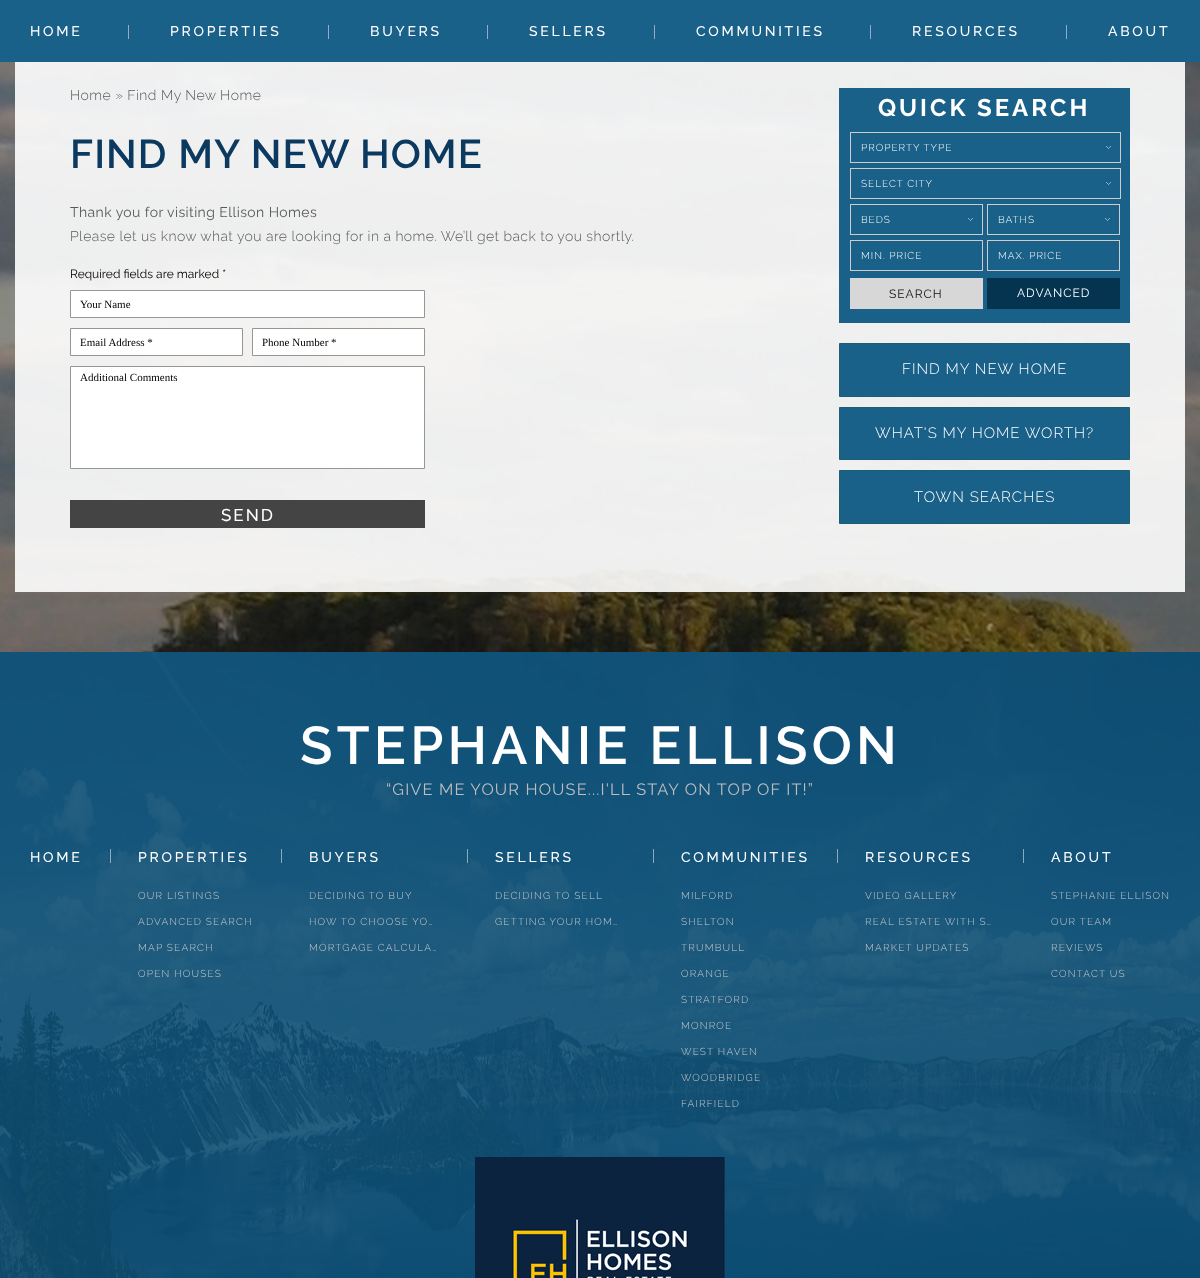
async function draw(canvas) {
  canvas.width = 1200
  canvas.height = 1278
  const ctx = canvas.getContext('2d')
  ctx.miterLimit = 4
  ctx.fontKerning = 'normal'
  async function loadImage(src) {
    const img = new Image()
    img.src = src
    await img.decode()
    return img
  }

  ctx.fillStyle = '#fff'
  ctx.fillRect(0, 0, 1200, 1278)
  ctx.fillStyle = '#1a6189'
  ctx.fillRect(0, 0, 1200, 62)
  ctx.letterSpacing = '2.75px'
  ctx.font = '500 14px Raleway'
  ctx.fillStyle = '#fff'
  ctx.fillText('HOME', 30, 36)
  ctx.fillStyle = '#8db0c4'
  ctx.fillRect(128, 25, 1, 14)
  ctx.fillStyle = '#fff'
  ctx.fillText('PROPERTIES', 170, 36)
  ctx.fillStyle = '#8db0c4'
  ctx.fillRect(328, 25, 1, 14)
  ctx.fillStyle = '#fff'
  ctx.fillText('BUYERS', 370, 36)
  ctx.fillStyle = '#8db0c4'
  ctx.fillRect(487, 25, 1, 14)
  ctx.fillStyle = '#fff'
  ctx.fillText('SELLERS', 529, 36)
  ctx.fillStyle = '#8db0c4'
  ctx.fillRect(654, 25, 1, 14)
  ctx.fillStyle = '#fff'
  ctx.fillText('COMMUNITIES', 696, 36)
  ctx.fillStyle = '#8db0c4'
  ctx.fillRect(870, 25, 1, 14)
  ctx.fillStyle = '#fff'
  ctx.fillText('RESOURCES', 912, 36)
  ctx.fillStyle = '#8db0c4'
  ctx.fillRect(1066, 25, 1, 14)
  ctx.fillStyle = '#fff'
  ctx.fillText('ABOUT', 1108, 36)
  ctx.drawImage(await loadImage('image0.png'), 0, 62, 1200, 590)
  ctx.fillStyle = '#ffffffe6'
  ctx.fillRect(15, 62, 1170, 530)
  ctx.letterSpacing = '0.42px'
  ctx.font = '300 14px Raleway'
  ctx.fillStyle = '#595959'
  ctx.fillText('Home » Find My New Home', 70, 100)
  ctx.letterSpacing = '1px'
  ctx.font = '600 40px Raleway'
  ctx.fillStyle = '#0c3960'
  ctx.fillText('FIND MY NEW HOME', 70, 168)
  ctx.letterSpacing = '0.42px'
  ctx.font = '14px Raleway'
  ctx.fillStyle = '#595959'
  ctx.fillText('Thank you for visiting Ellison Homes', 70, 217)
  ctx.font = '300 14px Raleway'
  ctx.fillText('Please let us know what you are looking for in a home. We’ll get back to you shortly.', 70, 241)
  ctx.letterSpacing = '0px'
  ctx.font = '12px Raleway'
  ctx.fillStyle = '#000'
  ctx.fillText('Required fields are marked *', 70, 278)
  ctx.fillStyle = '#fff'
  ctx.beginPath()
  ctx.rect(70.5, 290.5, 354, 27)
  ctx.fill()
  ctx.strokeStyle = '#969696'
  ctx.stroke()
  ctx.font = '11px Liberation Serif'
  ctx.fillStyle = '#000'
  ctx.fillText('Your Name', 80, 308)
  ctx.fillStyle = '#fff'
  ctx.beginPath()
  ctx.rect(70.5, 328.5, 172, 27)
  ctx.fill()
  ctx.stroke()
  ctx.fillStyle = '#000'
  ctx.fillText('Email Address *', 80, 346)
  ctx.fillStyle = '#fff'
  ctx.beginPath()
  ctx.rect(252.5, 328.5, 172, 27)
  ctx.fill()
  ctx.stroke()
  ctx.fillStyle = '#000'
  ctx.fillText('Phone Number *', 262, 346)
  ctx.fillStyle = '#fff'
  ctx.beginPath()
  ctx.rect(70.5, 366.5, 354, 102)
  ctx.fill()
  ctx.stroke()
  ctx.fillStyle = '#000'
  ctx.fillText('Additional Comments', 80, 381)
  ctx.fillStyle = '#444'
  ctx.fillRect(70, 500, 355, 28)
  ctx.letterSpacing = '2px'
  ctx.font = '500 17px Raleway'
  ctx.fillStyle = '#fff'
  ctx.fillText('SEND', 221, 521)
  ctx.fillStyle = '#1a6189'
  ctx.fillRect(839, 88, 291, 235)
  ctx.letterSpacing = '3px'
  ctx.font = 'bold 24px Raleway'
  ctx.fillStyle = '#fff'
  ctx.fillText('QUICK SEARCH', 878, 116)
  ctx.drawImage(await loadImage('image1.png'), 1106, 146, 5, 3)
  ctx.strokeStyle = '#ccc'
  ctx.strokeRect(850.5, 132.5, 270, 30)
  ctx.letterSpacing = '1px'
  ctx.font = '300 10px Raleway'
  ctx.fillText('PROPERTY TYPE', 861, 151)
  ctx.drawImage(await loadImage('image1.png'), 1106, 182, 5, 3)
  ctx.strokeRect(850.5, 168.5, 270, 30)
  ctx.fillText('SELECT CITY', 861, 187)
  ctx.drawImage(await loadImage('image1.png'), 968, 218, 5, 3)
  ctx.strokeRect(850.5, 204.5, 132, 30)
  ctx.fillText('BEDS', 861, 223)
  ctx.drawImage(await loadImage('image1.png'), 1105, 218, 5, 3)
  ctx.strokeRect(987.5, 204.5, 132, 30)
  ctx.fillText('BATHS', 998, 223)
  ctx.strokeRect(850.5, 240.5, 132, 30)
  ctx.fillText('MIN. PRICE', 861, 259)
  ctx.strokeRect(987.5, 240.5, 132, 30)
  ctx.fillText('MAX. PRICE', 998, 259)
  ctx.fillStyle = '#d7d7d7'
  ctx.fillRect(850, 278, 133, 31)
  ctx.font = '12px Raleway'
  ctx.fillStyle = '#111'
  ctx.fillText('SEARCH', 889, 298)
  ctx.fillStyle = '#043450'
  ctx.fillRect(987, 278, 133, 31)
  ctx.fillStyle = '#fff'
  ctx.fillText('ADVANCED', 1017, 297)
  ctx.fillStyle = '#1a6189'
  ctx.beginPath()
  ctx.rect(839.5, 343.5, 290, 53)
  ctx.fill()
  ctx.strokeStyle = '#1b5e6e'
  ctx.stroke()
  ctx.font = '300 15px Raleway'
  ctx.fillStyle = '#fff'
  ctx.fillText('FIND MY NEW HOME', 902, 374)
  ctx.fillStyle = '#1a6189'
  ctx.beginPath()
  ctx.rect(839.5, 407.5, 290, 52)
  ctx.fill()
  ctx.stroke()
  ctx.fillStyle = '#fff'
  ctx.fillText('WHAT\'S MY HOME WORTH?', 875, 438)
  ctx.fillStyle = '#1a6189'
  ctx.beginPath()
  ctx.rect(839.5, 470.5, 290, 53)
  ctx.fill()
  ctx.stroke()
  ctx.fillStyle = '#fff'
  ctx.fillText('TOWN SEARCHES', 914, 502)
  ctx.drawImage(await loadImage('image2.png'), 0, 652, 1200, 626)
  ctx.letterSpacing = '4.25px'
  ctx.font = '600 53.25px Raleway'
  ctx.fillText('STEPHANIE ELLISON', 300, 764)
  ctx.letterSpacing = '1.15px'
  ctx.font = '16.35px Raleway'
  ctx.fillStyle = '#bebebe'
  ctx.fillText('“GIVE ME YOUR HOUSE...I\'LL STAY ON TOP OF IT!”', 386, 795)
  ctx.letterSpacing = '2.75px'
  ctx.font = '500 14px Raleway'
  ctx.fillStyle = '#fff'
  ctx.fillText('HOME', 30, 862)
  ctx.fillStyle = '#ffffff80'
  ctx.fillRect(110, 849, 1, 14)
  ctx.fillStyle = '#fff'
  ctx.fillText('PROPERTIES', 138, 862)
  ctx.letterSpacing = '1.2px'
  ctx.font = '300 10px Raleway'
  ctx.fillStyle = '#cbcbcb'
  ctx.fillText('OUR LISTINGS', 138, 899)
  ctx.fillText('ADVANCED SEARCH', 138, 925)
  ctx.fillText('MAP SEARCH', 138, 951)
  ctx.fillText('OPEN HOUSES', 138, 977)
  ctx.fillStyle = '#8aaabd'
  ctx.fillRect(281, 849, 1, 14)
  ctx.letterSpacing = '2.75px'
  ctx.font = '500 14px Raleway'
  ctx.fillStyle = '#fff'
  ctx.fillText('BUYERS', 309, 862)
  ctx.letterSpacing = '1.2px'
  ctx.font = '300 10px Raleway'
  ctx.fillStyle = '#cbcbcb'
  ctx.fillText('DECIDING TO BUY', 309, 899)
  ctx.fillText('HOW TO CHOOSE YO…', 309, 925)
  ctx.fillText('MORTGAGE CALCULA…', 309, 951)
  ctx.fillStyle = '#ffffff80'
  ctx.fillRect(467, 849, 1, 14)
  ctx.letterSpacing = '2.75px'
  ctx.font = '500 14px Raleway'
  ctx.fillStyle = '#fff'
  ctx.fillText('SELLERS', 495, 862)
  ctx.letterSpacing = '1.2px'
  ctx.font = '300 10px Raleway'
  ctx.fillStyle = '#cbcbcb'
  ctx.fillText('DECIDING TO SELL', 495, 899)
  ctx.fillText('GETTING YOUR HOM…', 495, 925)
  ctx.fillStyle = '#8aaabd'
  ctx.fillRect(653, 849, 1, 14)
  ctx.letterSpacing = '2.75px'
  ctx.font = '500 14px Raleway'
  ctx.fillStyle = '#fff'
  ctx.fillText('COMMUNITIES', 681, 862)
  ctx.letterSpacing = '1.2px'
  ctx.font = '300 10px Raleway'
  ctx.fillStyle = '#cbcbcb'
  ctx.fillText('MILFORD', 681, 899)
  ctx.fillText('SHELTON', 681, 925)
  ctx.fillText('TRUMBULL', 681, 951)
  ctx.fillText('ORANGE', 681, 977)
  ctx.fillText('STRATFORD', 681, 1003)
  ctx.fillText('MONROE', 681, 1029)
  ctx.fillText('WEST HAVEN', 681, 1055)
  ctx.fillText('WOODBRIDGE', 681, 1081)
  ctx.fillText('FAIRFIELD', 681, 1107)
  ctx.fillStyle = '#8baabd'
  ctx.fillRect(837, 849, 1, 14)
  ctx.letterSpacing = '2.75px'
  ctx.font = '500 14px Raleway'
  ctx.fillStyle = '#fff'
  ctx.fillText('RESOURCES', 865, 862)
  ctx.letterSpacing = '1.2px'
  ctx.font = '300 10px Raleway'
  ctx.fillStyle = '#cbcbcb'
  ctx.fillText('VIDEO GALLERY', 865, 899)
  ctx.fillText('REAL ESTATE WITH S…', 865, 925)
  ctx.fillText('MARKET UPDATES', 865, 951)
  ctx.fillStyle = '#89a9bc'
  ctx.fillRect(1023, 849, 1, 14)
  ctx.letterSpacing = '2.75px'
  ctx.font = '500 14px Raleway'
  ctx.fillStyle = '#fff'
  ctx.fillText('ABOUT', 1051, 862)
  ctx.letterSpacing = '1.2px'
  ctx.font = '300 10px Raleway'
  ctx.fillStyle = '#cbcbcb'
  ctx.fillText('STEPHANIE ELLISON', 1051, 899)
  ctx.fillText('OUR TEAM', 1051, 925)
  ctx.fillText('REVIEWS', 1051, 951)
  ctx.fillText('CONTACT US', 1051, 977)
  ctx.drawImage(await loadImage('image3.png'), 475, 1157, 250, 121)
}

draw(document.querySelector('canvas'))
